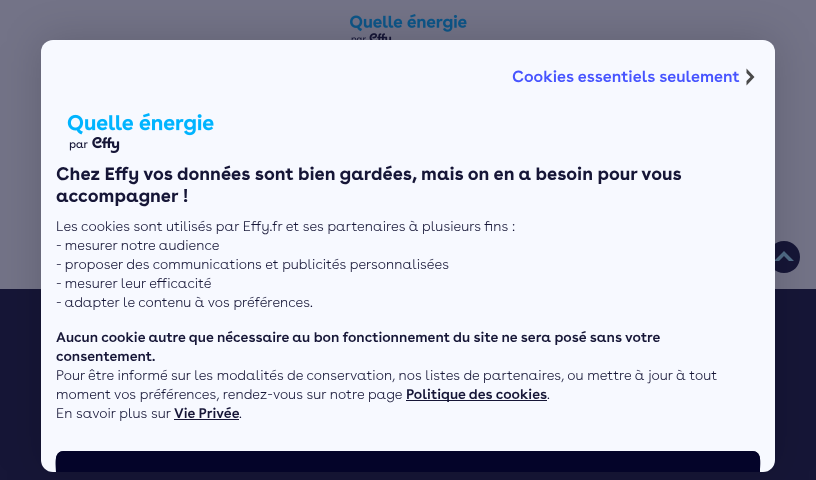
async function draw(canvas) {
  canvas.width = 816
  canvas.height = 480
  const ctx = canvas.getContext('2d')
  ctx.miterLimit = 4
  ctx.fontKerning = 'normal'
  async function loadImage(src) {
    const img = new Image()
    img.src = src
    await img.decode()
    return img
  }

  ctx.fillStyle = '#737387'
  ctx.fillRect(0, 0, 816, 480)
  ctx.drawImage(await loadImage('image0.png'), 350, 14, 117, 26)
  ctx.fillStyle = '#161637'
  ctx.fillRect(0, 289, 816, 191)
  ctx.beginPath()
  ctx.moveTo(768, 257)
  ctx.bezierCurveTo(768, 248, 775, 241, 784, 241)
  ctx.bezierCurveTo(793, 241, 800, 248, 800, 257)
  ctx.bezierCurveTo(800, 266, 793, 273, 784, 273)
  ctx.bezierCurveTo(775, 273, 768, 266, 768, 257)
  ctx.closePath()
  ctx.fill()
  ctx.fillStyle = '#506c87'
  ctx.beginPath()
  ctx.moveTo(789, 261)
  ctx.lineTo(784, 256)
  ctx.lineTo(779, 261)
  ctx.lineTo(774, 261)
  ctx.lineTo(784, 251)
  ctx.lineTo(794, 261)
  ctx.closePath()
  ctx.fill('evenodd')
  ctx.fillStyle = '#00000029'
  ctx.filter = 'blur(20px)'
  ctx.beginPath()
  ctx.roundRect(41, 40, 734, 432, 12)
  ctx.fill()
  ctx.filter = 'none'
  ctx.fillStyle = '#f7f9ff'
  ctx.beginPath()
  ctx.roundRect(41, 40, 734, 432, 12)
  ctx.fill()
  ctx.font = '600 16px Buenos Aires'
  ctx.fillStyle = '#4754ff'
  ctx.fillText('Cookies essentiels seulement', 512, 82)
  ctx.fillStyle = '#4a4a4a'
  ctx.beginPath()
  ctx.moveTo(746.5, 81)
  ctx.lineTo(750.5, 77)
  ctx.lineTo(746.5, 73)
  ctx.lineTo(746.5, 68.5)
  ctx.lineTo(754.5, 77)
  ctx.lineTo(746.5, 85.5)
  ctx.closePath()
  ctx.fill('evenodd')
  ctx.drawImage(await loadImage('image1.png'), 67, 113, 147, 40)
  ctx.font = 'bold 18px Buenos Aires'
  ctx.fillStyle = '#161637'
  ctx.fillText('Chez Effy vos données sont bien gardées, mais on en a besoin pour vous', 56, 180)
  ctx.fillText('accompagner !', 56, 202)
  ctx.font = '300 14px Buenos Aires'
  ctx.fillText('Les cookies sont utilisés par Effy.fr et ses partenaires à plusieurs fins :', 56, 231)
  ctx.fillText('- mesurer notre audience', 56, 250)
  ctx.fillText('- proposer des communications et publicités personnalisées', 56, 269)
  ctx.fillText('- mesurer leur efficacité', 56, 288)
  ctx.fillText('- adapter le contenu à vos préférences.', 56, 307)
  ctx.font = '600 14px Buenos Aires'
  ctx.fillText('Aucun cookie autre que nécessaire au bon fonctionnement du site ne sera posé sans votre', 56, 342)
  ctx.fillText('consentement.', 56, 361)
  ctx.font = '300 14px Buenos Aires'
  ctx.fillText('Pour être informé sur les modalités de conservation, nos listes de partenaires, ou mettre à jour à tout', 56, 380)
  ctx.fillText('moment vos préférences, rendez-vous sur notre page', 56, 399)
  ctx.fillRect(406, 400, 141, 1)
  ctx.font = '600 14px Buenos Aires'
  ctx.fillText('Politique des cookies', 406, 399)
  ctx.font = '300 14px Buenos Aires'
  ctx.fillText('.', 547, 399)
  ctx.fillText('En savoir plus sur', 56, 418)
  ctx.font = '600 14px Buenos Aires'
  ctx.fillText('Vie Privée', 174, 418)
  ctx.fillRect(174, 419, 65, 1)
  ctx.font = '300 14px Buenos Aires'
  ctx.fillText('.', 239, 418)
  ctx.fillStyle = '#040429'
  ctx.beginPath()
  ctx.roundRect(56, 451, 704, 21, [8, 8, 0, 0])
  ctx.fill()
  ctx.beginPath()
  ctx.moveTo(64, 451)
  ctx.bezierCurveTo(53, 451, 56, 465, 56, 472)
  ctx.lineTo(57, 472)
  ctx.lineTo(57, 459)
  ctx.bezierCurveTo(57, 455, 60, 452, 64, 452)
  ctx.lineTo(752, 452)
  ctx.bezierCurveTo(756, 452, 759, 455, 759, 459)
  ctx.lineTo(759, 472)
  ctx.lineTo(760, 472)
  ctx.bezierCurveTo(760, 465, 763, 451, 752, 451)
  ctx.closePath()
  ctx.fill()
}

draw(document.querySelector('canvas'))
